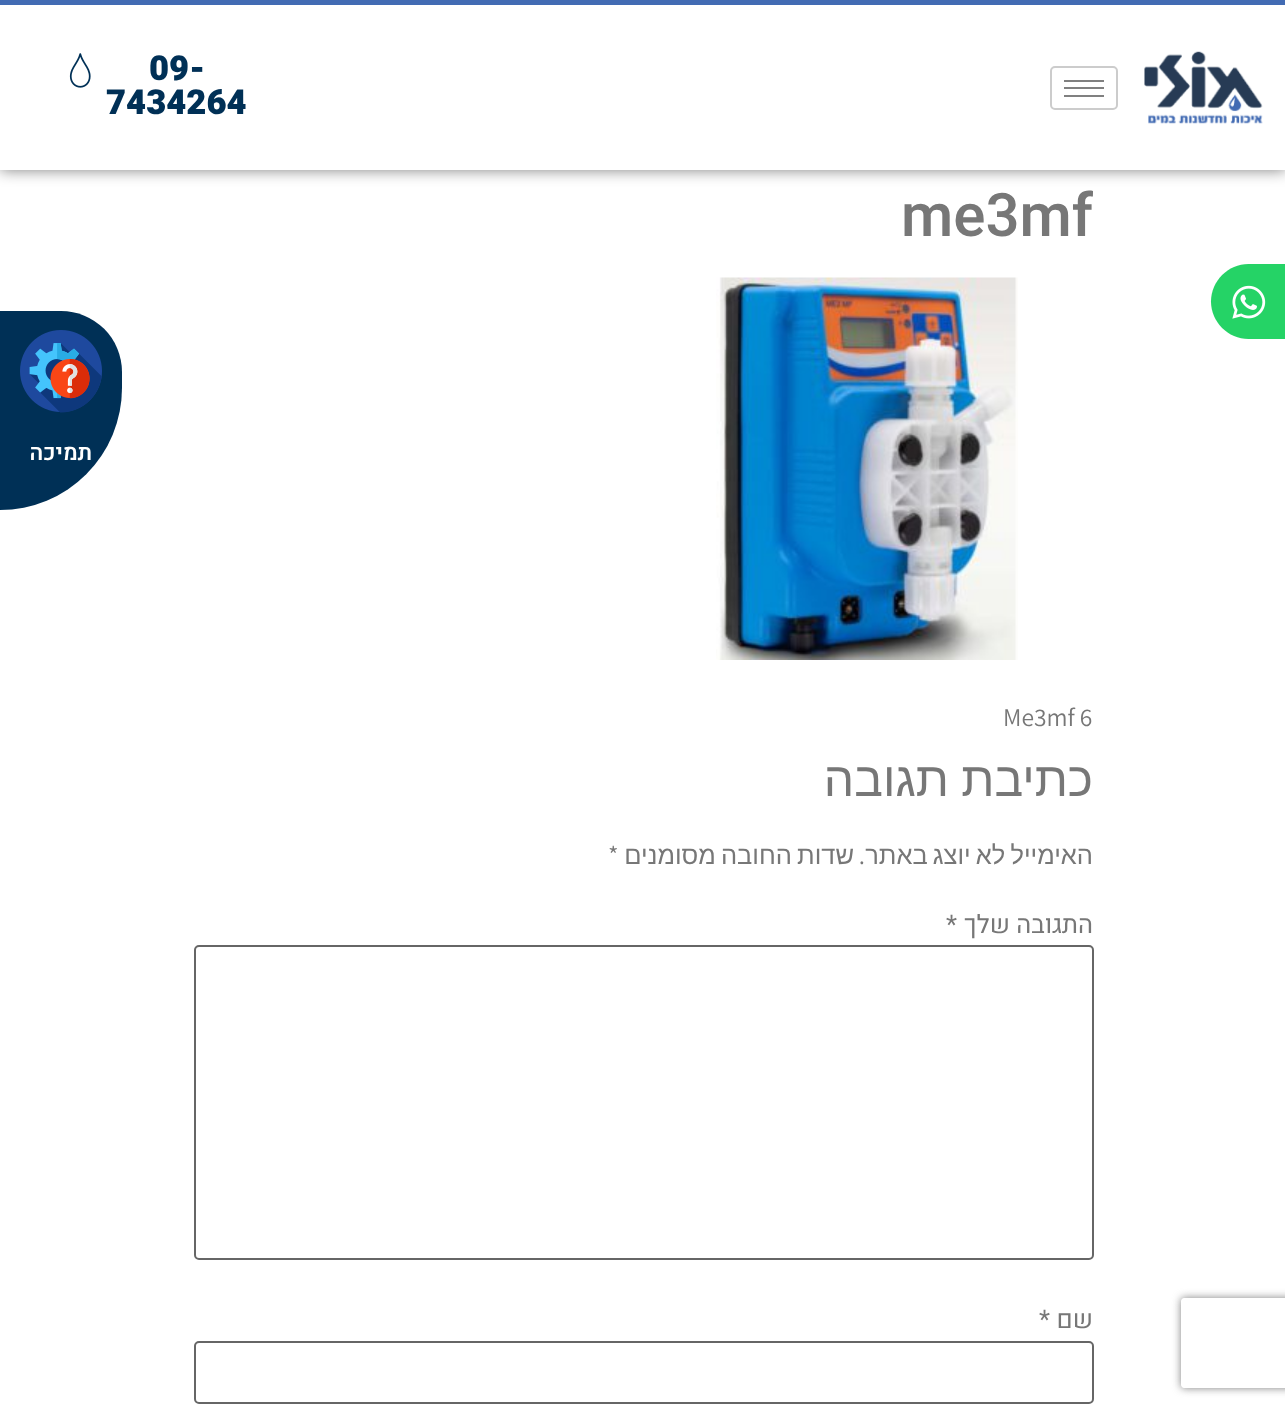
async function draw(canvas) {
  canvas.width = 1285
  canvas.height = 1408
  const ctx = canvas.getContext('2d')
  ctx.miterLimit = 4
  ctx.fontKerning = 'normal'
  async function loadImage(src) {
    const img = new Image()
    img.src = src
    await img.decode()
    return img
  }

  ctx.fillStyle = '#fff'
  ctx.fillRect(0, 0, 1285, 1408)
  ctx.save()
  ctx.beginPath()
  ctx.moveTo(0, 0)
  ctx.lineTo(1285, 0)
  ctx.lineTo(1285, 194)
  ctx.lineTo(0, 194)
  ctx.closePath()
  ctx.moveTo(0, 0)
  ctx.lineTo(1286, 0)
  ctx.lineTo(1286, 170)
  ctx.lineTo(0, 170)
  ctx.closePath()
  ctx.clip('evenodd')
  ctx.fillStyle = '#00000080'
  ctx.filter = 'blur(7.5px)'
  ctx.beginPath()
  ctx.rect(0, 0, 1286, 170)
  ctx.fill()
  ctx.filter = 'none'
  ctx.restore()
  ctx.fillStyle = '#ffffffd6'
  ctx.fillRect(0, 169, 1285, 1)
  ctx.fillStyle = '#426bb3'
  ctx.fillRect(0, 0, 1285, 5)
  ctx.drawImage(await loadImage('image0.png'), 1144, 51, 119, 73)
  ctx.beginPath()
  ctx.roundRect(1051, 67, 66, 42, 4)
  ctx.strokeStyle = '#ccc'
  ctx.lineWidth = 2
  ctx.stroke()
  ctx.fillStyle = '#808080'
  ctx.fillRect(1064, 80, 40, 2)
  ctx.fillRect(1064, 87, 40, 2)
  ctx.fillRect(1064, 95, 40, 2)
  ctx.font = '900 34.5px Heebo'
  ctx.fillStyle = '#003056'
  ctx.fillText('09-', 149, 80)
  ctx.fillText('7434264', 106, 114)
  ctx.drawImage(await loadImage('image1.png'), 69, 53, 22, 35)
  ctx.font = '500 60px Heebo'
  ctx.fillStyle = '#777'
  ctx.fillText('me3mf', 901, 236)
  ctx.drawImage(await loadImage('image2.png'), 716, 277, 302, 383)
  ctx.font = '25.5px Assistant'
  ctx.fillText('Me3mf 6', 1003, 726)
  ctx.wordSpacing = '-1px'
  ctx.direction = 'rtl'
  ctx.font = '48px Liberation Sans'
  ctx.fillText('כתיבת תגובה', 1093, 796)
  ctx.wordSpacing = '-2px'
  ctx.font = '25.5px Liberation Sans'
  ctx.fillText('האימייל לא יוצג באתר', 1093, 864)
  ctx.wordSpacing = '0px'
  ctx.font = '25.5px Assistant'
  ctx.fillText('.', 865, 864)
  ctx.wordSpacing = '-2px'
  ctx.font = '25.5px Liberation Sans'
  ctx.fillText('שדות החובה מסומנים', 854, 864)
  ctx.wordSpacing = '0px'
  ctx.direction = 'ltr'
  ctx.font = '25.5px Assistant'
  ctx.fillText('*', 608, 864)
  ctx.direction = 'rtl'
  ctx.font = '25.5px Heebo'
  ctx.fillText('התגובה שלך', 1093, 933)
  ctx.direction = 'ltr'
  ctx.fillText('*', 946, 933)
  ctx.beginPath()
  ctx.roundRect(195, 946, 898, 313, 4)
  ctx.strokeStyle = '#666'
  ctx.stroke()
  ctx.direction = 'rtl'
  ctx.fillText('שם', 1093, 1328)
  ctx.direction = 'ltr'
  ctx.fillText('*', 1039, 1328)
  ctx.beginPath()
  ctx.roundRect(195, 1342, 898, 61, 4)
  ctx.stroke()
  ctx.fillStyle = '#25d366'
  ctx.beginPath()
  ctx.moveTo(1248.5, 264)
  ctx.lineTo(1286, 264)
  ctx.lineTo(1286, 339)
  ctx.lineTo(1248.5, 339)
  ctx.bezierCurveTo(1228, 339, 1211, 322, 1211, 301.5)
  ctx.bezierCurveTo(1211, 281, 1228, 264, 1248.5, 264)
  ctx.closePath()
  ctx.fill()
  ctx.drawImage(await loadImage('image3.png'), 1232, 285, 34, 34)
  ctx.fillStyle = '#003056'
  ctx.beginPath()
  ctx.roundRect(0, 311, 122, 199, [0, 61, 122, 0])
  ctx.fill()
  ctx.drawImage(await loadImage('image4.png'), 20, 330, 82, 83)
  ctx.direction = 'rtl'
  ctx.font = '600 22.5px Heebo'
  ctx.fillStyle = '#fff'
  ctx.fillText('תמיכה', 92, 460)
  ctx.save()
  ctx.beginPath()
  ctx.moveTo(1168, 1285)
  ctx.lineTo(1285, 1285)
  ctx.lineTo(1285, 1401)
  ctx.lineTo(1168, 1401)
  ctx.closePath()
  ctx.moveTo(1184, 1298)
  ctx.lineTo(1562, 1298)
  ctx.bezierCurveTo(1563.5, 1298, 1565, 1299.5, 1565, 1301)
  ctx.lineTo(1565, 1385)
  ctx.bezierCurveTo(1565, 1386.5, 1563.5, 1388, 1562, 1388)
  ctx.lineTo(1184, 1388)
  ctx.bezierCurveTo(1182.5, 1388, 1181, 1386.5, 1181, 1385)
  ctx.lineTo(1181, 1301)
  ctx.bezierCurveTo(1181, 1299.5, 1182.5, 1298, 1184, 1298)
  ctx.closePath()
  ctx.clip('evenodd')
  ctx.fillStyle = '#808080'
  ctx.filter = 'blur(4px)'
  ctx.beginPath()
  ctx.roundRect(1181, 1298, 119, 90, 3)
  ctx.fill()
  ctx.filter = 'none'
  ctx.restore()
}

draw(document.querySelector('canvas'))
